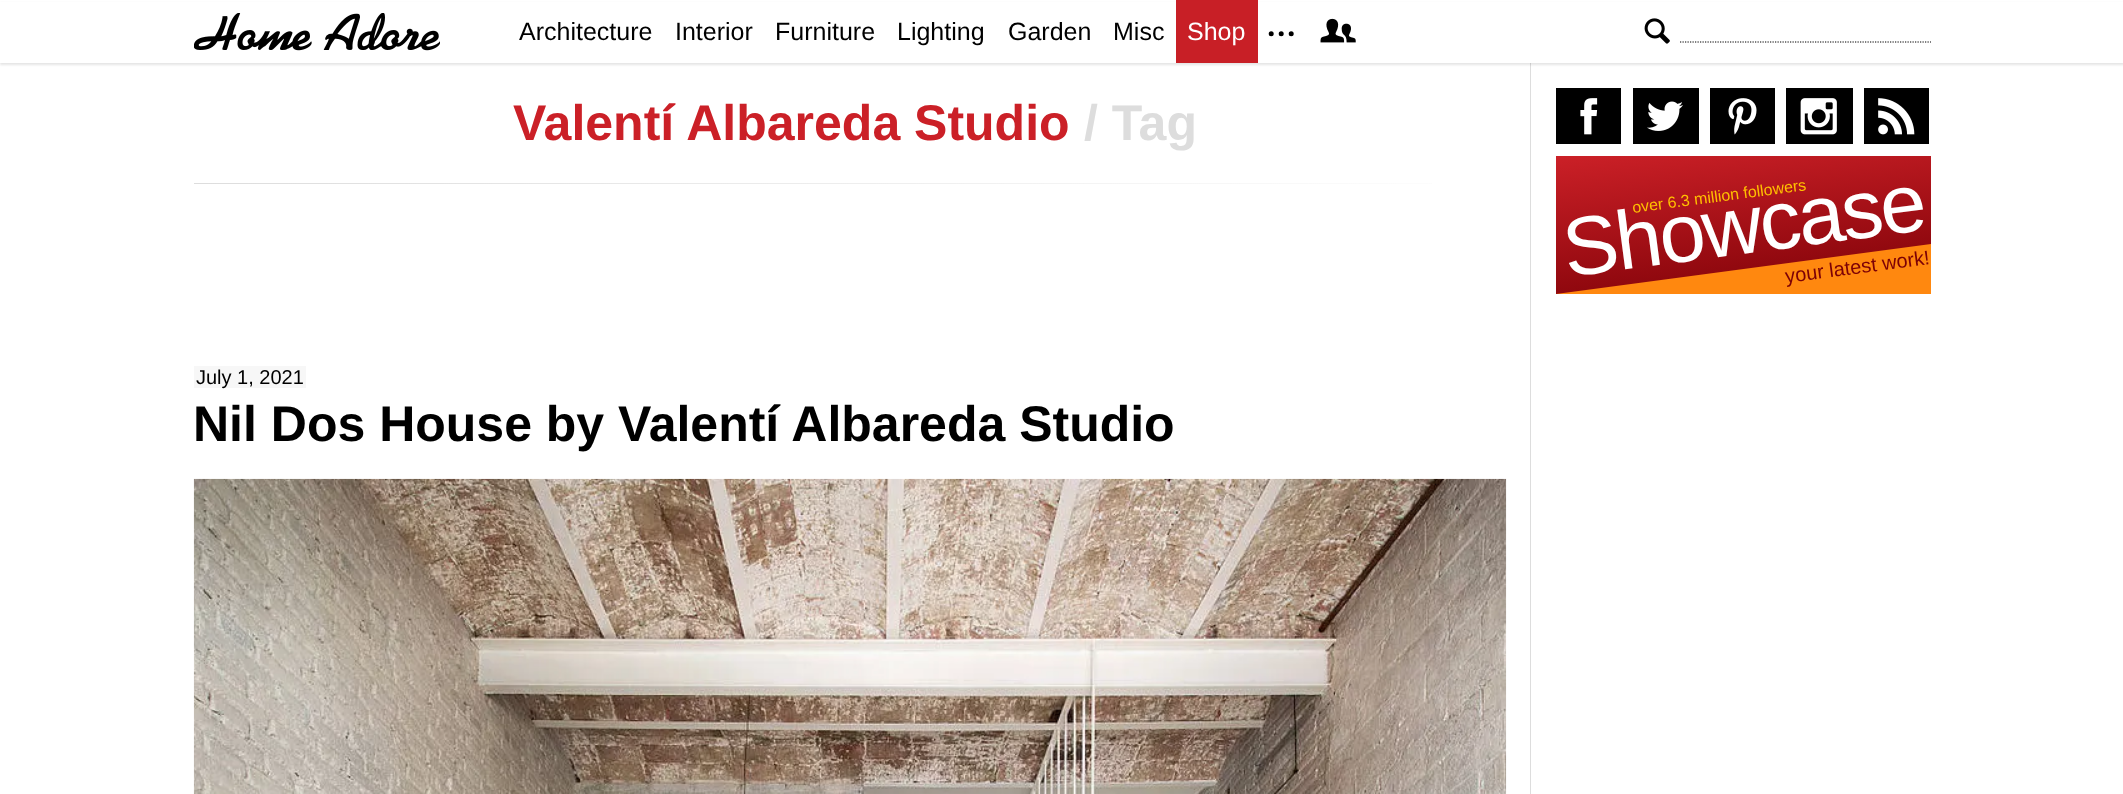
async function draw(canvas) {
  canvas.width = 2123
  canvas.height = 794
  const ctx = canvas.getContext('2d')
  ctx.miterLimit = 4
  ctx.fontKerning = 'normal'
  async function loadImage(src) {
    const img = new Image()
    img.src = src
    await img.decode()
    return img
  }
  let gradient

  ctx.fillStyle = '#fff'
  ctx.fillRect(0, 0, 2123, 794)
  ctx.fillStyle = '#ddd'
  ctx.fillRect(1530, 63, 1, 731)
  ctx.fillStyle = '#0000001a'
  ctx.filter = 'blur(1px)'
  ctx.beginPath()
  ctx.rect(0, 3, 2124, 62)
  ctx.fill()
  ctx.filter = 'none'
  ctx.fillStyle = '#fff'
  ctx.fillRect(0, 2, 2123, 61)
  ctx.drawImage(await loadImage('image0.png'), 194, 13, 246, 38)
  ctx.font = '25px Liberation Sans'
  ctx.fillStyle = '#000'
  ctx.fillText('Architecture', 519, 40)
  ctx.fillText('Interior', 675, 40)
  ctx.fillText('Furniture', 775, 40)
  ctx.fillText('Lighting', 897, 40)
  ctx.fillText('Garden', 1008, 40)
  ctx.fillText('Misc', 1113, 40)
  ctx.fillStyle = '#c81f26'
  ctx.fillRect(1176, 0, 82, 63)
  ctx.fillStyle = '#fff'
  ctx.fillText('Shop', 1187, 40)
  ctx.fillStyle = '#000'
  ctx.beginPath()
  ctx.arc(1271.2, 33.8, 2.5, 0, 2 * Math.PI)
  ctx.fill()
  ctx.beginPath()
  ctx.arc(1281.2, 33.8, 2.5, 0, 2 * Math.PI)
  ctx.fill()
  ctx.beginPath()
  ctx.arc(1291.2, 33.8, 2.5, 0, 2 * Math.PI)
  ctx.fill()
  ctx.drawImage(await loadImage('image1.png'), 1320, 18, 36, 25)
  ctx.drawImage(await loadImage('image2.png'), 1644, 18, 26, 26)
  ctx.beginPath()
  ctx.moveTo(1680, 42)
  ctx.lineTo(1931, 42)
  ctx.strokeStyle = '#000'
  ctx.lineWidth = 1.2
  ctx.setLineDash([1.25, 1.25])
  ctx.stroke()
  ctx.font = 'bold 50px Liberation Sans'
  ctx.fillStyle = '#cb2027'
  ctx.fillText('Valentí Albareda Studio', 513, 140)
  ctx.fillStyle = '#ddd'
  ctx.fillText('/ Tag', 1084, 140)
  gradient = ctx.createLinearGradient(1530, 183, 194, 183)
  gradient.addColorStop(0, '#fff')
  gradient.addColorStop(1, '#ddd')
  ctx.fillStyle = gradient
  ctx.fillRect(194, 183, 1238, 1)
  ctx.fillStyle = '#f7f7f7'
  ctx.fillRect(194, 366, 112, 22)
  ctx.font = '20px Liberation Sans'
  ctx.fillStyle = '#000'
  ctx.fillText('July 1, 2021', 196, 384)
  ctx.font = 'bold 50px Liberation Sans'
  ctx.fillText('Nil Dos House by Valentí Albareda Studio', 193, 441)
  ctx.drawImage(await loadImage('image3.png'), 193, 478, 1314, 316)
  ctx.fillRect(1556, 88, 65, 56)
  ctx.drawImage(await loadImage('image4.png'), 1580, 98, 18, 37)
  ctx.fillRect(1633, 88, 66, 56)
  ctx.drawImage(await loadImage('image5.png'), 1647, 101, 36, 30)
  ctx.fillRect(1710, 88, 65, 56)
  ctx.drawImage(await loadImage('image6.png'), 1728, 98, 29, 37)
  ctx.fillRect(1786, 88, 67, 56)
  ctx.drawImage(await loadImage('image7.png'), 1800, 98, 37, 37)
  ctx.fillRect(1864, 88, 65, 56)
  ctx.drawImage(await loadImage('image8.png'), 1878, 98, 37, 37)
  gradient = ctx.createLinearGradient(1733, 135, 1755, 315)
  gradient.addColorStop(0, '#cb2027')
  gradient.addColorStop(1, '#7c0006')
  ctx.fillStyle = gradient
  ctx.fillRect(1556, 156, 375, 138)
  ctx.font = '16px Liberation Sans'
  ctx.fillStyle = '#ffc000'
  ctx.save()
  ctx.translate(1633, 213)
  ctx.rotate(-7.5 * Math.PI / 180)
  ctx.fillText('over 6.3 million followers', 0, 0)
  ctx.restore()
  ctx.fillStyle = '#ff880f'
  ctx.beginPath()
  ctx.moveTo(1931, 294)
  ctx.lineTo(1556, 294)
  ctx.lineTo(1931, 244)
  ctx.closePath()
  ctx.fill()
  ctx.letterSpacing = '-2.5px'
  ctx.font = '83px Liberation Sans'
  ctx.fillStyle = '#fff'
  ctx.save()
  ctx.translate(1567, 277)
  ctx.rotate(-7.5 * Math.PI / 180)
  ctx.fillText('Showcase', 0, 0)
  ctx.restore()
  ctx.letterSpacing = '0px'
  ctx.font = '20px Liberation Sans'
  ctx.fillStyle = '#7c0006'
  ctx.save()
  ctx.translate(1786, 283)
  ctx.rotate(-7.5 * Math.PI / 180)
  ctx.fillText('your latest work!', 0, 0)
  ctx.restore()
}

draw(document.querySelector('canvas'))
